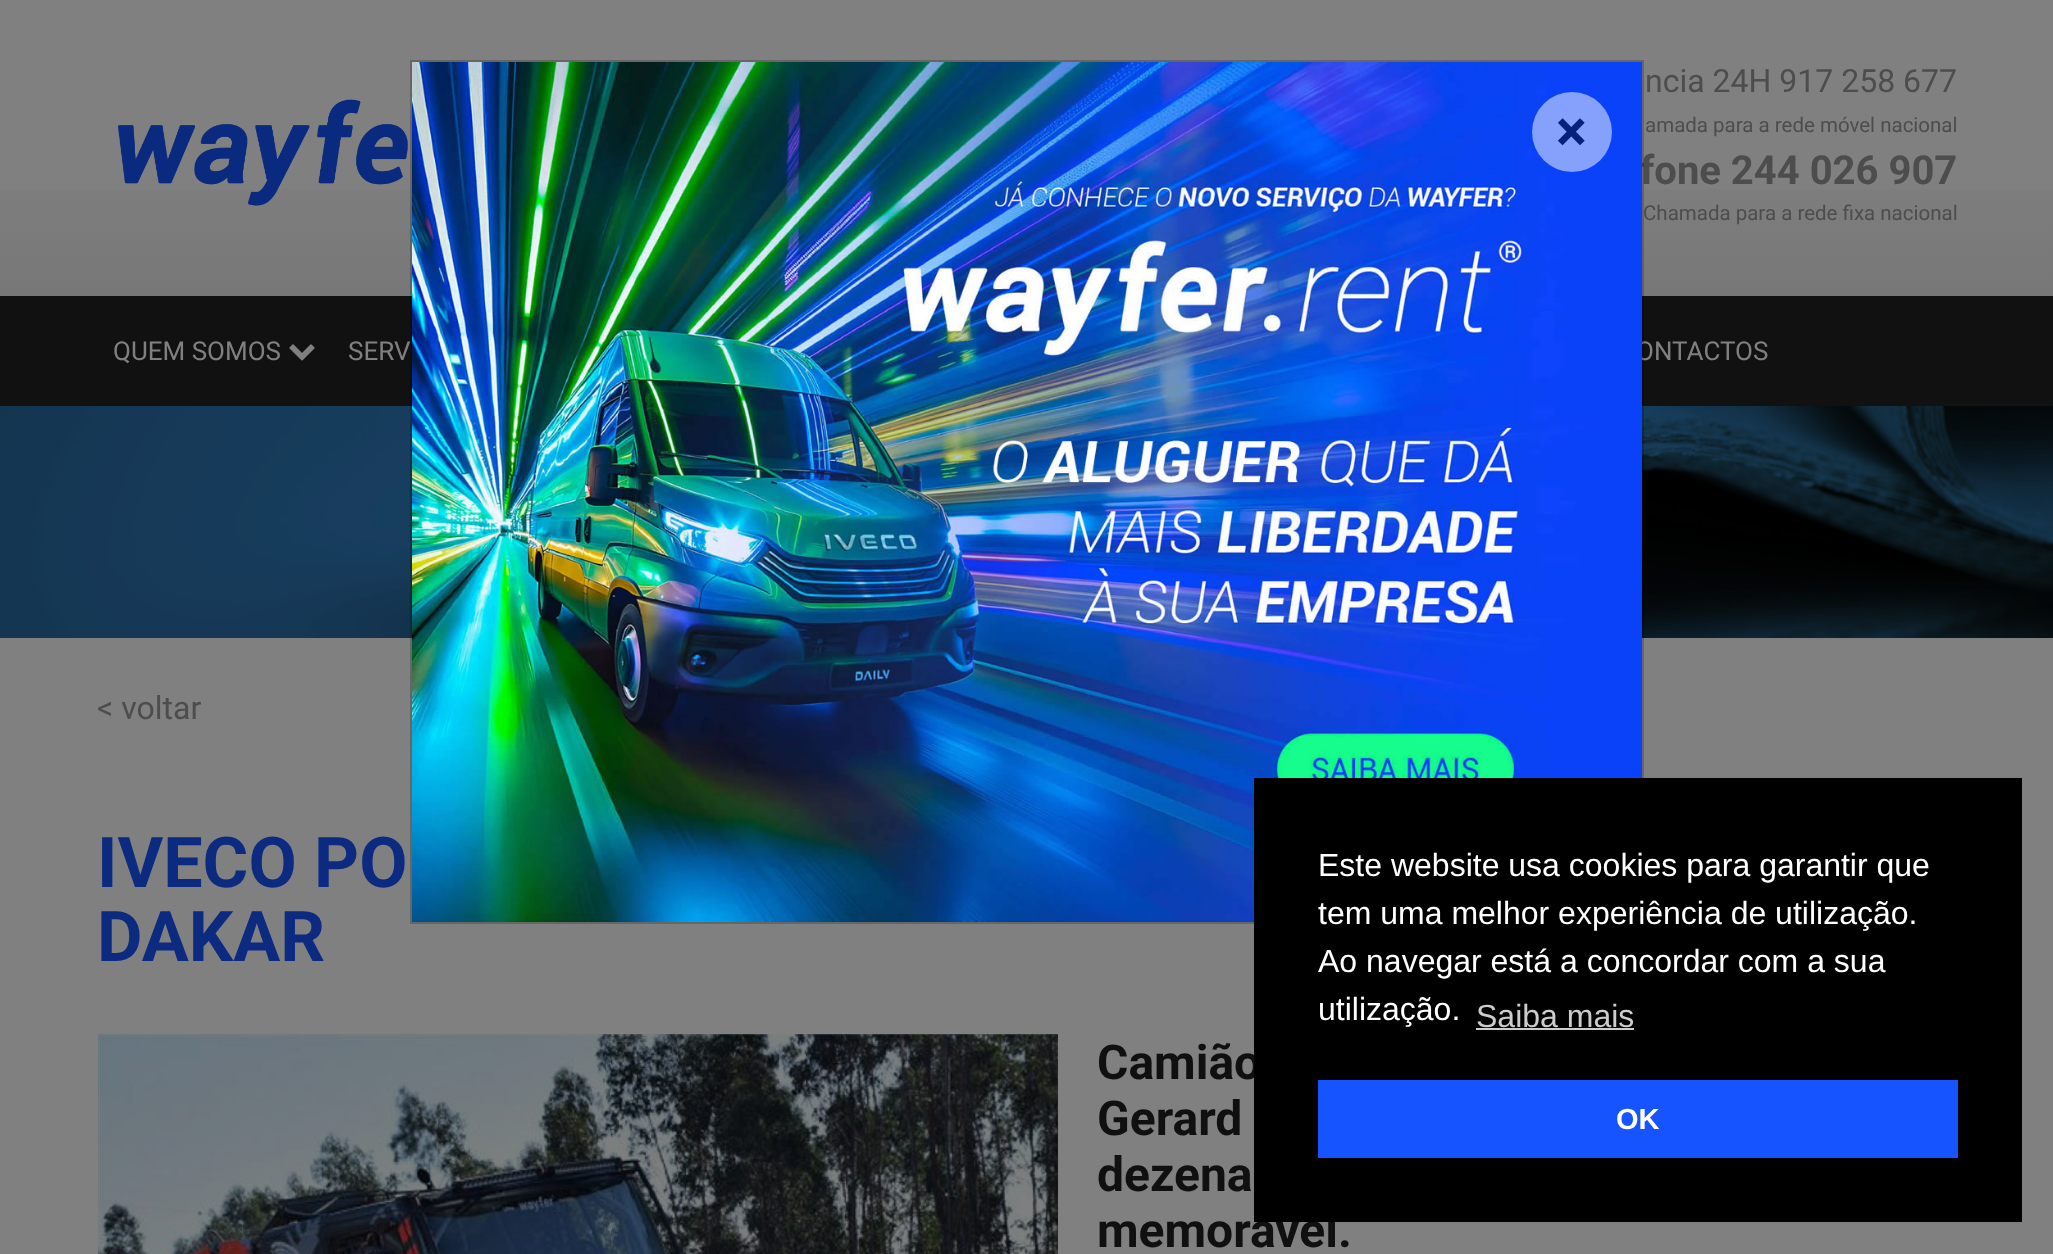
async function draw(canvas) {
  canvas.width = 2053
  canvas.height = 1254
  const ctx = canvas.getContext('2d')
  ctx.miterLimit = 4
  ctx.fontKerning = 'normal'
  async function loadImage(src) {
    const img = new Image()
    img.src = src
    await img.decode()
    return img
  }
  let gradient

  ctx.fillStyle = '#808080'
  ctx.fillRect(0, 0, 2053, 1254)
  gradient = ctx.createLinearGradient(1027, 0, 1027, 296)
  gradient.addColorStop(0.5, '#808080')
  gradient.addColorStop(1, '#777')
  ctx.fillStyle = gradient
  ctx.fillRect(0, 189, 2053, 107)
  ctx.drawImage(await loadImage('image0.png'), 118, 99, 290, 107)
  ctx.font = '32px Roboto'
  ctx.fillStyle = '#4d4d4d'
  ctx.fillText('ncia 24H 917 258 677', 1645, 92)
  ctx.font = '20.5px Roboto'
  ctx.fillText('amada para a rede móvel nacional', 1645, 132)
  ctx.font = 'bold 40px Roboto'
  ctx.fillText('fone 244 026 907', 1640, 184)
  ctx.font = '20.5px Roboto'
  ctx.fillText('Chamada para a rede fixa nacional', 1643, 220)
  ctx.fillStyle = '#111'
  ctx.fillRect(0, 296, 2053, 110)
  ctx.font = '26px Roboto'
  ctx.fillStyle = '#808080'
  ctx.fillText('QUEM SOMOS', 113, 360)
  ctx.drawImage(await loadImage('image1.png'), 289, 344, 26, 17)
  ctx.fillText('SERV', 348, 360)
  ctx.fillText('ONTACTOS', 1636, 360)
  ctx.drawImage(await loadImage('image2.png'), 0, 406, 2053, 232)
  ctx.strokeStyle = '#00000033'
  ctx.lineWidth = 2
  ctx.strokeRect(411, 61, 1232, 862)
  ctx.drawImage(await loadImage('image3.png'), 412, 62, 1230, 860)
  ctx.fillStyle = '#ffffff80'
  ctx.beginPath()
  ctx.arc(1572, 132, 40, 0, 2 * Math.PI)
  ctx.fill()
  ctx.font = 'bold 58px Roboto'
  ctx.fillStyle = '#05217d'
  ctx.fillText('×', 1556, 151)
  ctx.font = '32px Roboto'
  ctx.fillStyle = '#4d4d4d'
  ctx.fillText('< voltar', 97, 719)
  ctx.font = 'bold 70px Roboto'
  ctx.fillStyle = '#0b2a80'
  ctx.fillText('IVECO PO', 97, 887)
  ctx.fillText('DAKAR', 97, 961)
  ctx.drawImage(await loadImage('image4.png'), 98, 1034, 960, 220)
  ctx.font = 'bold 48px Roboto'
  ctx.fillStyle = '#101010'
  ctx.fillText('Camião', 1097, 1079)
  ctx.fillText('Gerard', 1097, 1135)
  ctx.fillText('dezena', 1097, 1191)
  ctx.fillText('memorável.', 1097, 1247)
  ctx.fillStyle = '#000'
  ctx.fillRect(1254, 778, 768, 444)
  ctx.font = '32px Liberation Sans'
  ctx.fillStyle = '#fff'
  ctx.fillText('Este website usa cookies para garantir que', 1318, 876)
  ctx.fillText('tem uma melhor experiência de utilização.', 1318, 924)
  ctx.fillText('Ao navegar está a concordar com a sua', 1318, 972)
  ctx.fillText('utilização.', 1318, 1020)
  ctx.fillStyle = '#ccc'
  ctx.fillText('Saiba mais', 1476, 1027)
  ctx.fillRect(1476, 1028, 158, 2)
  ctx.fillStyle = '#1554ff'
  ctx.fillRect(1318, 1080, 640, 78)
  ctx.font = 'bold 29px Liberation Sans'
  ctx.fillStyle = '#fff'
  ctx.fillText('OK', 1616, 1129)
}

draw(document.querySelector('canvas'))
